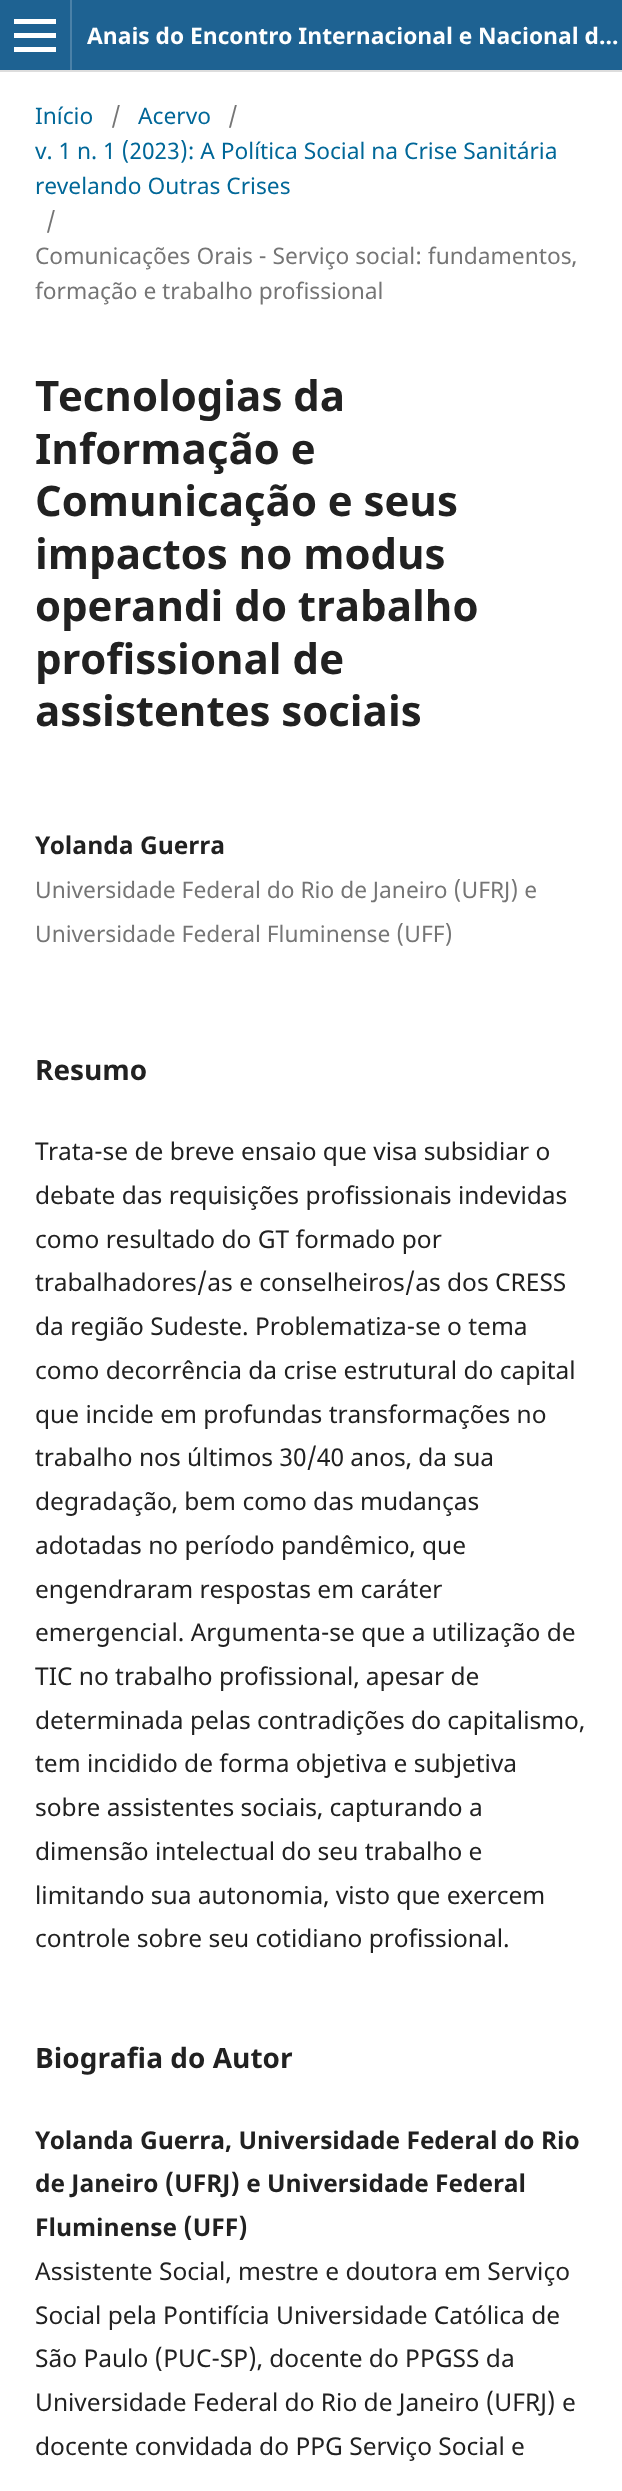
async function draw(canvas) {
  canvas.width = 622
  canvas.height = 2491
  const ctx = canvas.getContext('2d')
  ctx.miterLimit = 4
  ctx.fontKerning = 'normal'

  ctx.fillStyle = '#fff'
  ctx.fillRect(0, 0, 622, 2491)
  ctx.fillStyle = '#1e6292'
  ctx.fillRect(0, 0, 622, 70)
  ctx.fillStyle = '#ddd'
  ctx.fillRect(0, 70, 622, 2)
  ctx.fillStyle = '#4b81a8'
  ctx.fillRect(70, 0, 2, 70)
  ctx.fillStyle = '#fff'
  ctx.fillRect(14, 47, 42, 5)
  ctx.fillRect(14, 19, 42, 5)
  ctx.fillRect(14, 33, 42, 5)
  ctx.font = 'bold 22.75px Noto Sans'
  ctx.fillText('Anais do Encontro Internacional e Nacional d…', 87, 44)
  ctx.font = '22.75px Noto Sans'
  ctx.fillStyle = '#006798'
  ctx.fillText('Início', 35, 124)
  ctx.fillStyle = '#757575'
  ctx.fillText('/', 111, 124)
  ctx.fillStyle = '#006798'
  ctx.fillText('Acervo', 138, 124)
  ctx.fillStyle = '#757575'
  ctx.fillText('/', 228, 124)
  ctx.fillStyle = '#006798'
  ctx.fillText('v. 1 n. 1 (2023): A Política Social na Crise Sanitária', 35, 159)
  ctx.fillText('revelando Outras Crises', 35, 194)
  ctx.fillStyle = '#757575'
  ctx.fillText('/', 46, 229)
  ctx.fillText('Comunicações Orais - Serviço social: fundamentos,', 35, 264)
  ctx.fillText('formação e trabalho profissional', 35, 299)
  ctx.font = 'bold 42px Noto Sans'
  ctx.fillStyle = '#212121'
  ctx.fillText('Tecnologias da', 35, 411)
  ctx.fillText('Informação e', 35, 464)
  ctx.fillText('Comunicação e seus', 35, 516)
  ctx.fillText('impactos no modus', 35, 569)
  ctx.fillText('operandi do trabalho', 35, 621)
  ctx.fillText('profissional de', 35, 674)
  ctx.fillText('assistentes sociais', 35, 726)
  ctx.font = 'bold 24.5px Noto Sans'
  ctx.fillText('Yolanda Guerra', 35, 854)
  ctx.font = '22.75px Noto Sans'
  ctx.fillStyle = '#757575'
  ctx.fillText('Universidade Federal do Rio de Janeiro (UFRJ) e', 35, 898)
  ctx.fillText('Universidade Federal Fluminense (UFF)', 35, 942)
  ctx.font = 'bold 28px Noto Sans'
  ctx.fillStyle = '#212121'
  ctx.fillText('Resumo', 35, 1080)
  ctx.font = '24.5px Noto Sans'
  ctx.fillText('Trata-se de breve ensaio que visa subsidiar o', 35, 1160)
  ctx.fillText('debate das requisições profissionais indevidas', 35, 1204)
  ctx.fillText('como resultado do GT formado por', 35, 1248)
  ctx.fillText('trabalhadores/as e conselheiros/as dos CRESS', 35, 1291)
  ctx.fillText('da região Sudeste. Problematiza-se o tema', 35, 1335)
  ctx.fillText('como decorrência da crise estrutural do capital', 35, 1379)
  ctx.fillText('que incide em profundas transformações no', 35, 1423)
  ctx.fillText('trabalho nos últimos 30/40 anos, da sua', 35, 1466)
  ctx.fillText('degradação, bem como das mudanças', 35, 1510)
  ctx.fillText('adotadas no período pandêmico, que', 35, 1554)
  ctx.fillText('engendraram respostas em caráter', 35, 1598)
  ctx.fillText('emergencial. Argumenta-se que a utilização de', 35, 1641)
  ctx.fillText('TIC no trabalho profissional, apesar de', 35, 1685)
  ctx.fillText('determinada pelas contradições do capitalismo,', 35, 1729)
  ctx.fillText('tem incidido de forma objetiva e subjetiva', 35, 1772)
  ctx.fillText('sobre assistentes sociais, capturando a', 35, 1816)
  ctx.fillText('dimensão intelectual do seu trabalho e', 35, 1860)
  ctx.fillText('limitando sua autonomia, visto que exercem', 35, 1904)
  ctx.fillText('controle sobre seu cotidiano profissional.', 35, 1947)
  ctx.font = 'bold 28px Noto Sans'
  ctx.fillText('Biografia do Autor', 35, 2068)
  ctx.font = 'bold 24.5px Noto Sans'
  ctx.fillText('Yolanda Guerra, Universidade Federal do Rio', 35, 2149)
  ctx.fillText('de Janeiro (UFRJ) e Universidade Federal', 35, 2192)
  ctx.fillText('Fluminense (UFF)', 35, 2236)
  ctx.font = '24.5px Noto Sans'
  ctx.fillText('Assistente Social, mestre e doutora em Serviço', 35, 2280)
  ctx.fillText('Social pela Pontifícia Universidade Católica de', 35, 2324)
  ctx.fillText('São Paulo (PUC-SP), docente do PPGSS da', 35, 2367)
  ctx.fillText('Universidade Federal do Rio de Janeiro (UFRJ) e', 35, 2411)
  ctx.fillText('docente convidada do PPG Serviço Social e', 35, 2455)
}

draw(document.querySelector('canvas'))
